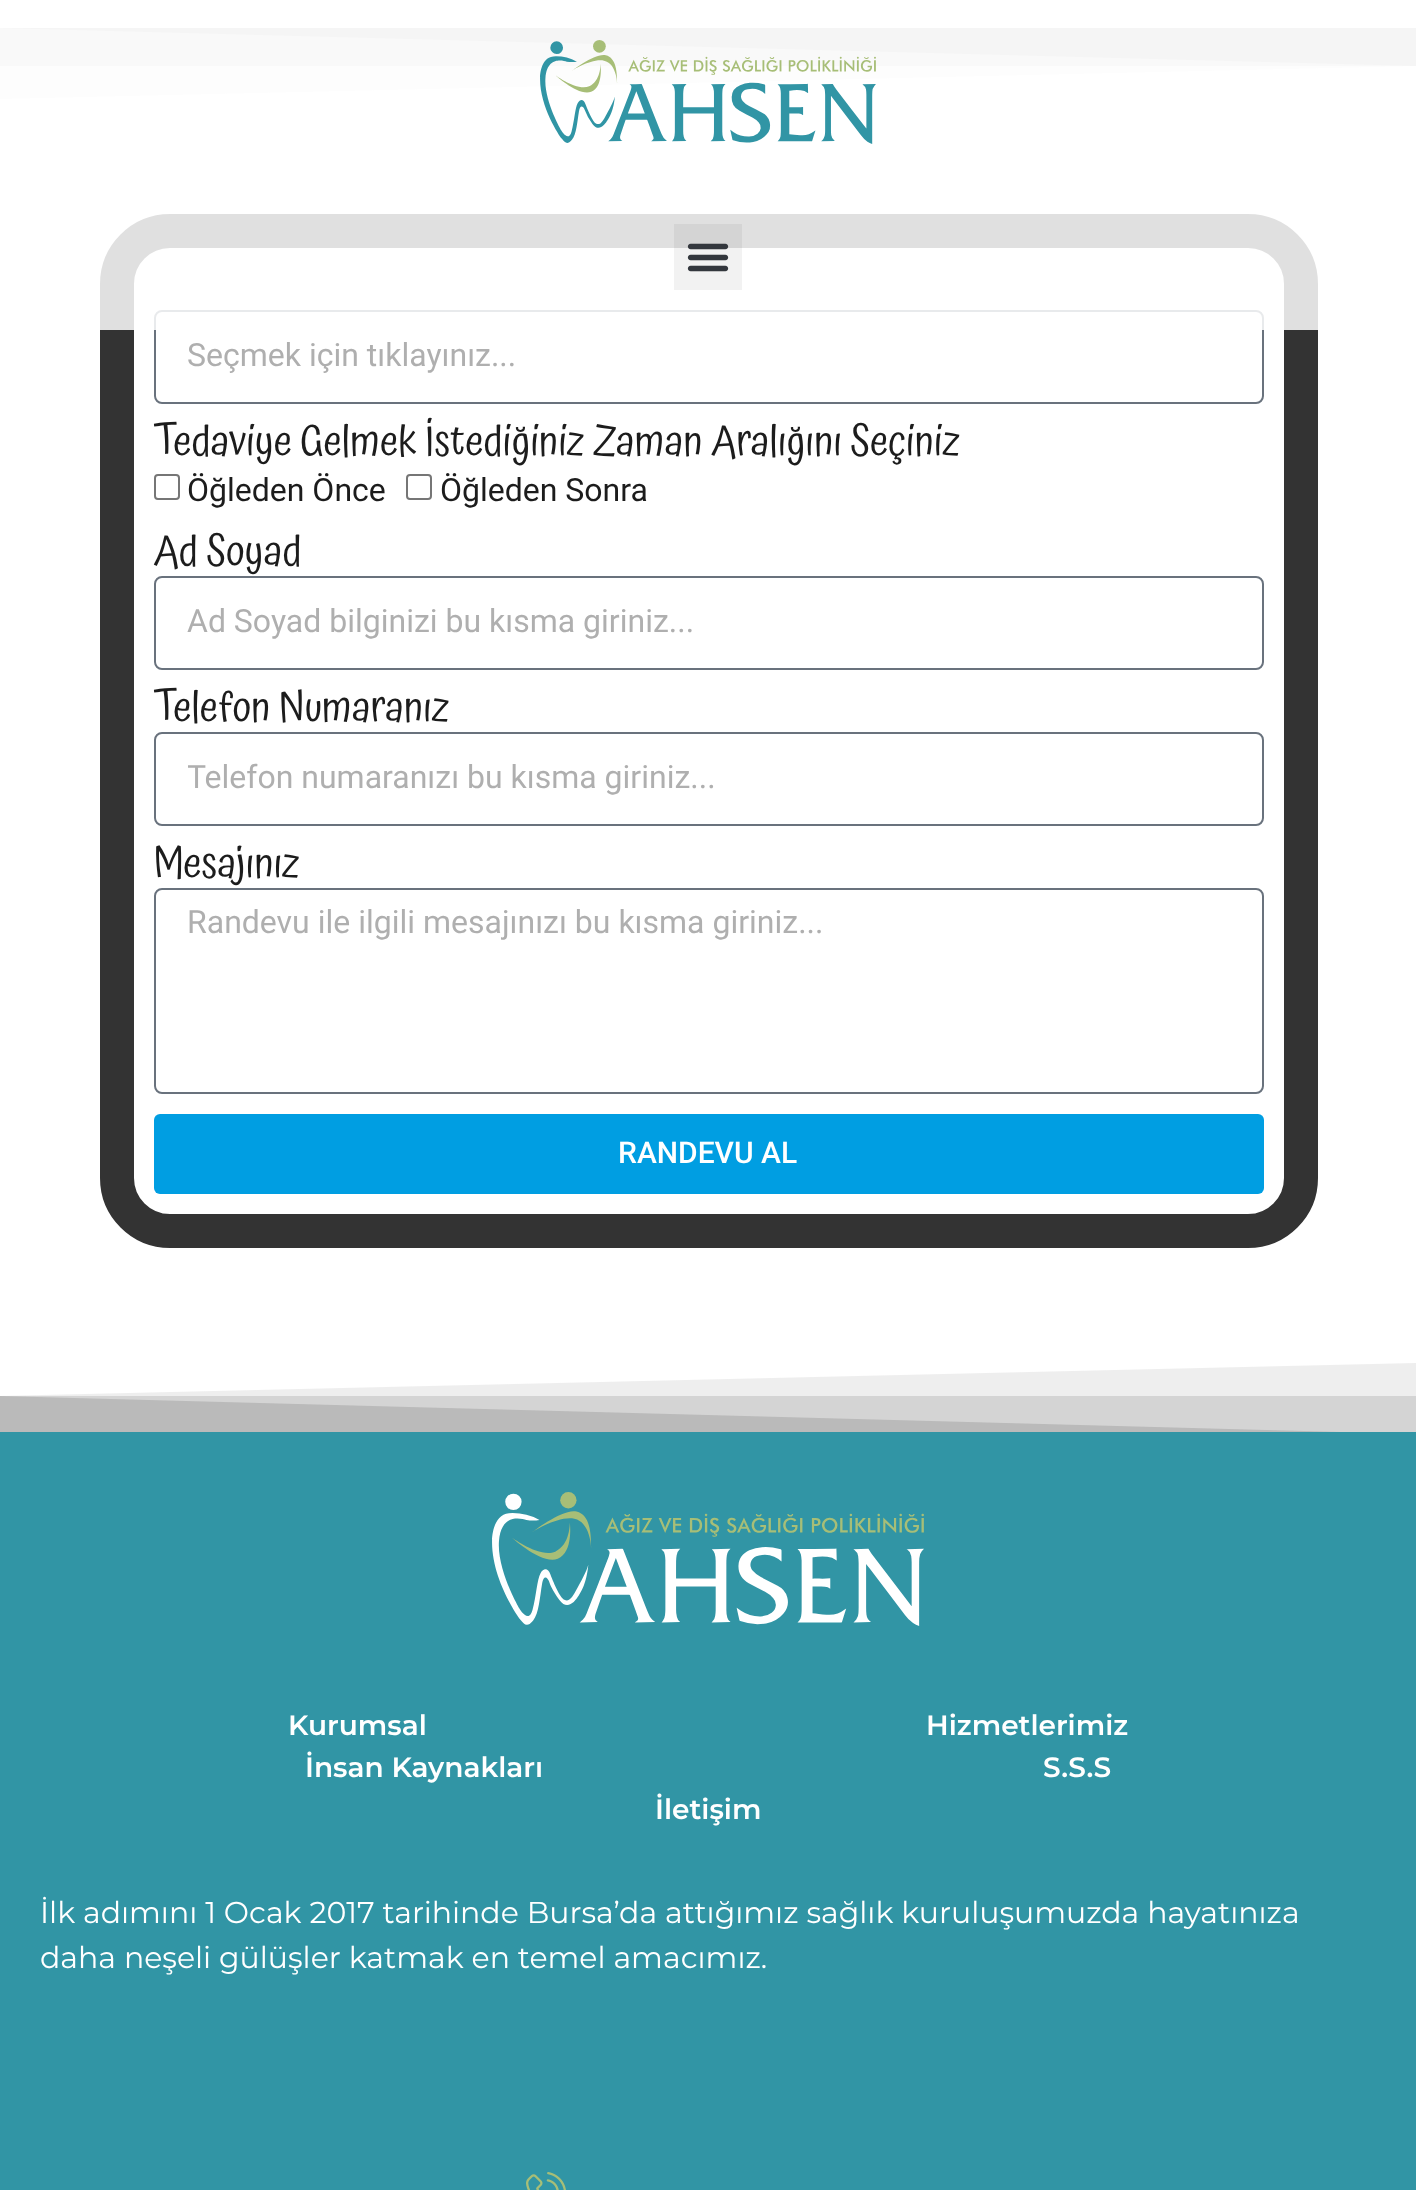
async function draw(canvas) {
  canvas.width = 1416
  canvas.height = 2190
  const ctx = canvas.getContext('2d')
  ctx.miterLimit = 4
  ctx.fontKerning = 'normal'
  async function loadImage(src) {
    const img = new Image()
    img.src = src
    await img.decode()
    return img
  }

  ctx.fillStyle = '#fff'
  ctx.fillRect(0, 0, 1416, 2190)
  ctx.fillStyle = '#ddd'
  ctx.fillRect(1, 1396, 1415, 36)
  ctx.fillRect(0, 28, 1416, 38)
  ctx.fillStyle = '#bababa'
  ctx.beginPath()
  ctx.moveTo(-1, 28)
  ctx.lineTo(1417, 28)
  ctx.lineTo(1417, 66)
  ctx.closePath()
  ctx.fill()
  ctx.fillStyle = '#bababa40'
  ctx.beginPath()
  ctx.moveTo(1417, 28)
  ctx.lineTo(-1, 28)
  ctx.lineTo(-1, 99)
  ctx.lineTo(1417, 66)
  ctx.closePath()
  ctx.fill()
  ctx.beginPath()
  ctx.roundRect(117, 231, 1184, 1000, 53)
  ctx.strokeStyle = '#333'
  ctx.lineWidth = 34
  ctx.stroke()
  ctx.beginPath()
  ctx.roundRect(155, 311, 1108, 92, 7)
  ctx.strokeStyle = '#69727d'
  ctx.lineWidth = 2
  ctx.stroke()
  ctx.fillStyle = '#ffffffd9'
  ctx.fillRect(0, 28, 1416, 302)
  ctx.drawImage(await loadImage('image0.png'), 540, 40, 336, 104)
  ctx.fillStyle = '#0000000d'
  ctx.fillRect(674, 224, 68, 66)
  ctx.drawImage(await loadImage('image1.png'), 687, 243, 42, 29)
  ctx.font = '32px Roboto'
  ctx.fillStyle = '#afafaf'
  ctx.fillText('Seçmek için tıklayınız...', 187, 366)
  ctx.font = '42px Atma'
  ctx.fillStyle = '#1c1c1c'
  ctx.fillText('Tedaviye Gelmek İstediğiniz Zaman Aralığını Seçiniz', 153, 455)
  ctx.beginPath()
  ctx.roundRect(155, 475, 24, 24, 3)
  ctx.strokeStyle = '#767676'
  ctx.stroke()
  ctx.font = '32px Roboto'
  ctx.fillText('Öğleden Önce', 187, 501)
  ctx.beginPath()
  ctx.roundRect(407, 475, 24, 24, 3)
  ctx.stroke()
  ctx.fillText('Öğleden Sonra', 440, 501)
  ctx.font = '42px Atma'
  ctx.fillText('Ad Soyad', 153, 565)
  ctx.beginPath()
  ctx.roundRect(155, 577, 1108, 92, 7)
  ctx.strokeStyle = '#69727d'
  ctx.stroke()
  ctx.font = '32px Roboto'
  ctx.fillStyle = '#afafaf'
  ctx.fillText('Ad Soyad bilginizi bu kısma giriniz...', 187, 632)
  ctx.font = '42px Atma'
  ctx.fillStyle = '#1c1c1c'
  ctx.fillText('Telefon Numaranız', 153, 721)
  ctx.beginPath()
  ctx.roundRect(155, 733, 1108, 92, 7)
  ctx.stroke()
  ctx.save()
  ctx.beginPath()
  ctx.rect(188, 758, 1042, 38)
  ctx.clip()
  ctx.font = '32px Roboto'
  ctx.fillStyle = '#afafaf'
  ctx.fillText('Telefon numaranızı bu kısma giriniz...', 187, 788)
  ctx.restore()
  ctx.fillText('Mesajınız', 153, 877)
  ctx.beginPath()
  ctx.roundRect(155, 889, 1108, 204, 7)
  ctx.stroke()
  ctx.font = '32px Roboto'
  ctx.fillStyle = '#afafaf'
  ctx.fillText('Randevu ile ilgili mesajınızı bu kısma giriniz...', 187, 933)
  ctx.fillStyle = '#009ee2'
  ctx.beginPath()
  ctx.roundRect(154, 1114, 1110, 80, 6)
  ctx.fill()
  ctx.font = '500 30px Roboto'
  ctx.fillStyle = '#fff'
  ctx.fillText('RANDEVU AL', 618, 1163)
  ctx.fillStyle = '#bababa'
  ctx.beginPath()
  ctx.moveTo(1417, 1434)
  ctx.lineTo(-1, 1434)
  ctx.lineTo(-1, 1396)
  ctx.closePath()
  ctx.fill()
  ctx.fillStyle = '#bababa40'
  ctx.beginPath()
  ctx.moveTo(-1, 1434)
  ctx.lineTo(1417, 1434)
  ctx.lineTo(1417, 1363)
  ctx.lineTo(-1, 1396)
  ctx.closePath()
  ctx.fill()
  ctx.fillStyle = '#3195a5'
  ctx.fillRect(0, 1432, 1416, 758)
  ctx.drawImage(await loadImage('image2.png'), 492, 1492, 432, 134)
  ctx.font = '600 28px Montserrat'
  ctx.fillStyle = '#fff'
  ctx.fillText('Kurumsal', 288, 1735)
  ctx.fillText('Hizmetlerimiz', 926, 1735)
  ctx.fillText('İnsan Kaynakları', 305, 1777)
  ctx.fillText('S.S.S', 1043, 1777)
  ctx.fillText('İletişim', 655, 1819)
  ctx.font = '30px Montserrat'
  ctx.fillText('İlk adımını 1 Ocak 2017 tarihinde Bursa’da attığımız sağlık kuruluşumuzda hayatınıza', 40, 1923)
  ctx.fillText('daha neşeli gülüşler katmak en temel amacımız.', 40, 1968)
  ctx.drawImage(await loadImage('image3.png'), 526, 2172, 40, 18)
}

draw(document.querySelector('canvas'))
